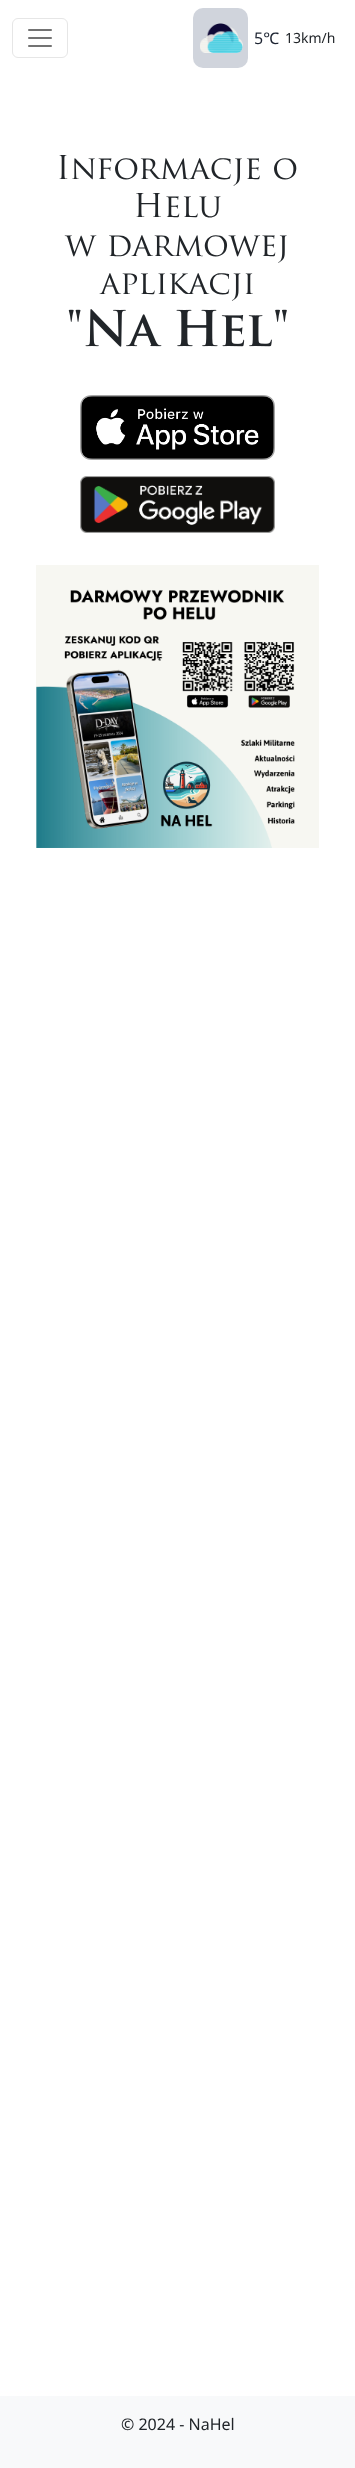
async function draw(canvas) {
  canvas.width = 355
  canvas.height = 2468
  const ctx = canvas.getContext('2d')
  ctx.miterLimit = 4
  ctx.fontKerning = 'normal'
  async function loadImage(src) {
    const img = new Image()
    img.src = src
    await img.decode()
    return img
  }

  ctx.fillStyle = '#fff'
  ctx.fillRect(0, 0, 355, 2468)
  ctx.beginPath()
  ctx.roundRect(12.5, 18.5, 55, 39, 5.5)
  ctx.strokeStyle = '#e6e6e6'
  ctx.stroke()
  ctx.drawImage(await loadImage('image0.png'), 28, 29, 24, 18)
  ctx.fillStyle = '#d0d4dc'
  ctx.beginPath()
  ctx.roundRect(193, 8, 55, 60, 10)
  ctx.fill()
  ctx.drawImage(await loadImage('image1.png'), 200, 23, 43, 30)
  ctx.font = '16px Noto Sans'
  ctx.fillStyle = '#1c2331'
  ctx.fillText('5℃', 254, 44)
  ctx.font = '14px Noto Sans'
  ctx.fillStyle = '#212529'
  ctx.fillText('13km/h', 285, 43)
  ctx.font = '32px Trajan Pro'
  ctx.fillText('Informacje o', 56, 179)
  ctx.fillText('Helu', 133, 217)
  ctx.fillText('w darmowej', 65, 256)
  ctx.fillText('aplikacji', 100, 294)
  ctx.drawImage(await loadImage('image2.png'), 68, 309, 219, 38)
  ctx.drawImage(await loadImage('image3.png'), 80, 395, 195, 65)
  ctx.drawImage(await loadImage('image4.png'), 80, 476, 195, 57)
  ctx.drawImage(await loadImage('image5.png'), 36, 565, 283, 283)
  ctx.fillStyle = '#f8f9fa'
  ctx.fillRect(0, 2396, 355, 72)
  ctx.font = '16px Noto Sans'
  ctx.fillStyle = '#212529'
  ctx.fillText('© 2024 - NaHel', 121, 2430)
}

draw(document.querySelector('canvas'))
